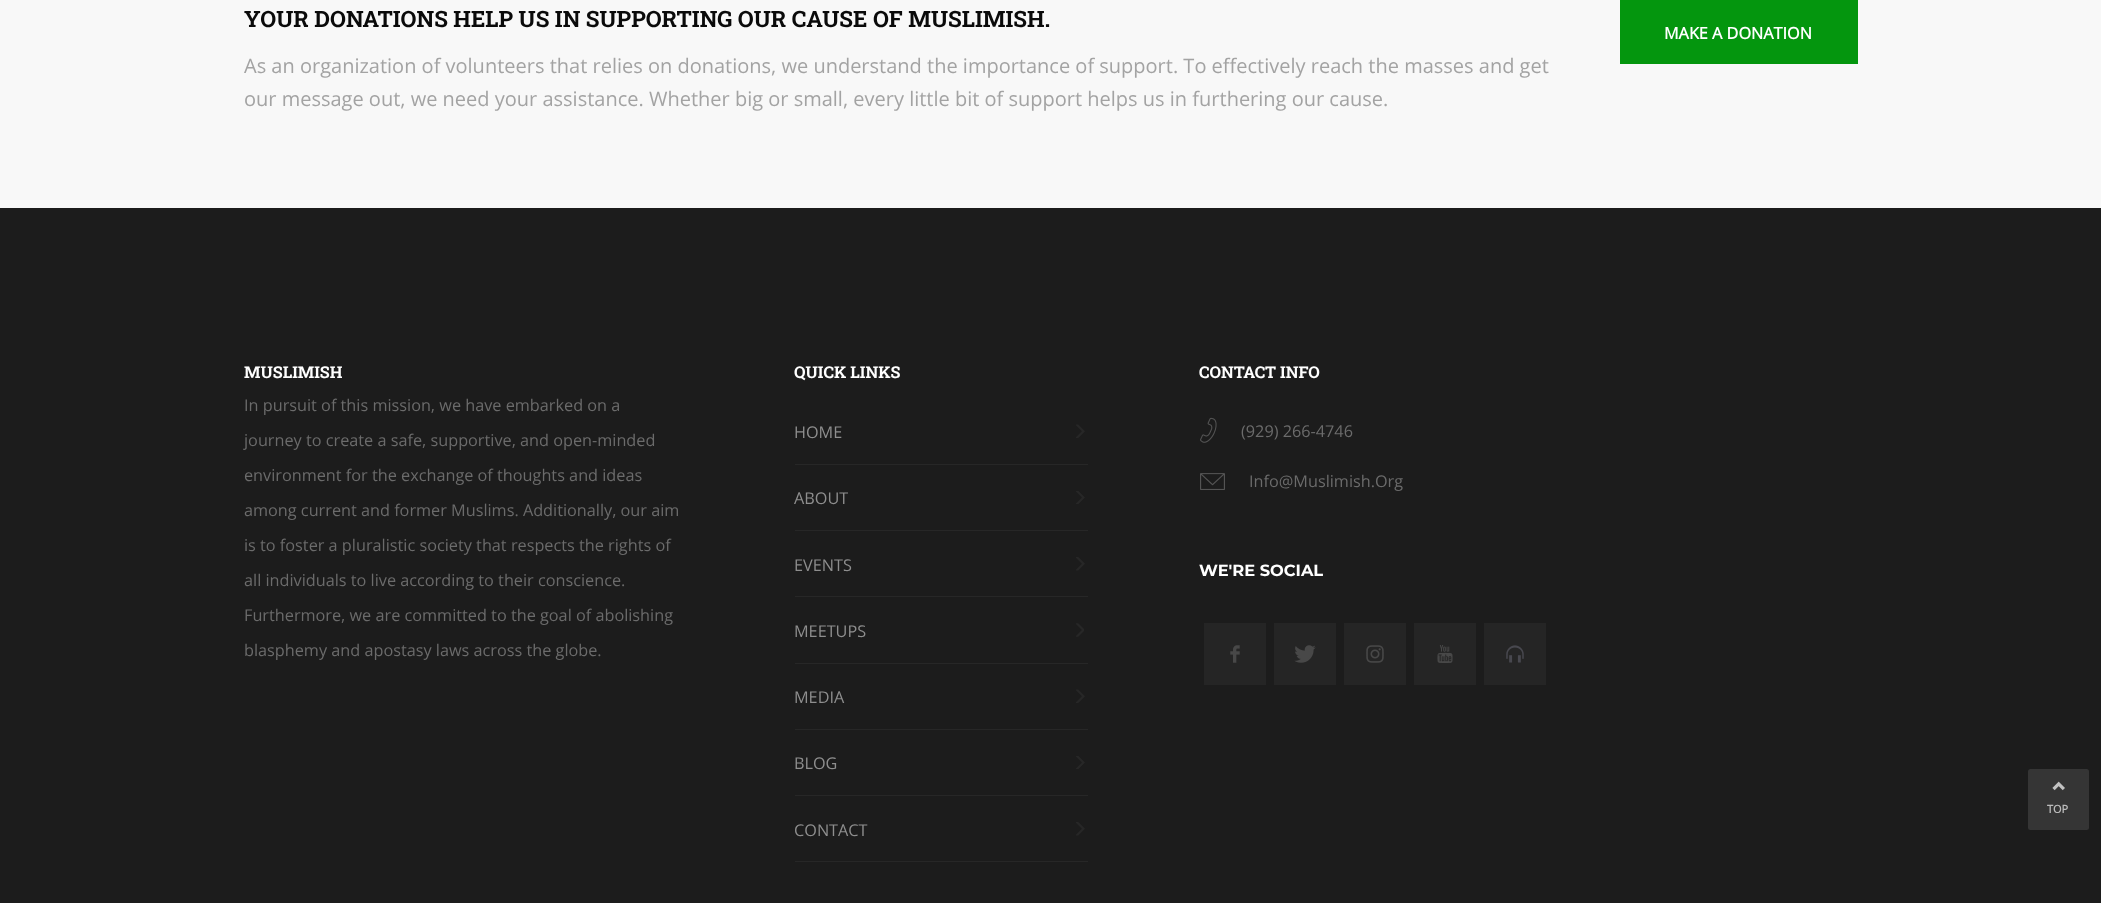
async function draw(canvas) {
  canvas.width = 2101
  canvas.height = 903
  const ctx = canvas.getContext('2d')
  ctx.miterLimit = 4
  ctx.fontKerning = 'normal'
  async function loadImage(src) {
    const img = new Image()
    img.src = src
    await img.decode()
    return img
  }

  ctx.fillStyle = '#f8f8f8'
  ctx.fillRect(0, 0, 2101, 903)
  ctx.font = 'bold 22.5px Roboto Slab'
  ctx.fillStyle = '#0a0a0a'
  ctx.fillText('YOUR DONATIONS HELP US IN SUPPORTING OUR CAUSE OF MUSLIMISH.', 244, 27)
  ctx.font = '20px Open Sans'
  ctx.fillStyle = '#a3a3a3'
  ctx.fillText('As an organization of volunteers that relies on donations, we understand the importance of support. To effectively reach the masses and get', 244, 73)
  ctx.fillText('our message out, we need your assistance. Whether big or small, every little bit of support helps us in furthering our cause.', 244, 106)
  ctx.fillStyle = '#04960e'
  ctx.fillRect(1620, 0, 238, 64)
  ctx.font = 'bold 16.25px Open Sans'
  ctx.fillStyle = '#fff'
  ctx.fillText('MAKE A DONATION', 1664, 39)
  ctx.fillStyle = '#1c1c1c'
  ctx.fillRect(0, 208, 2101, 695)
  ctx.font = 'bold 16.25px Roboto Slab'
  ctx.fillStyle = '#fff'
  ctx.fillText('MUSLIMISH', 244, 378)
  ctx.font = '16.25px Open Sans'
  ctx.fillStyle = '#6b6b6b'
  ctx.fillText('In pursuit of this mission, we have embarked on a', 244, 411)
  ctx.fillText('journey to create a safe, supportive, and open-minded', 244, 446)
  ctx.fillText('environment for the exchange of thoughts and ideas', 244, 481)
  ctx.fillText('among current and former Muslims. Additionally, our aim', 244, 516)
  ctx.fillText('is to foster a pluralistic society that respects the rights of', 244, 551)
  ctx.fillText('all individuals to live according to their conscience.', 244, 586)
  ctx.fillText('Furthermore, we are committed to the goal of abolishing', 244, 621)
  ctx.fillText('blasphemy and apostasy laws across the globe.', 244, 656)
  ctx.font = 'bold 16.25px Roboto Slab'
  ctx.fillStyle = '#fff'
  ctx.fillText('QUICK LINKS', 794, 378)
  ctx.fillStyle = '#272727'
  ctx.fillRect(795, 464, 293, 1)
  ctx.font = '16.25px Open Sans'
  ctx.fillStyle = '#8e8e8e'
  ctx.fillText('HOME', 794, 438)
  ctx.drawImage(await loadImage('image0.png'), 1076, 424, 9, 14)
  ctx.fillStyle = '#272727'
  ctx.fillRect(795, 530, 293, 1)
  ctx.fillStyle = '#8e8e8e'
  ctx.fillText('ABOUT', 794, 504)
  ctx.drawImage(await loadImage('image1.png'), 1076, 491, 9, 13)
  ctx.fillStyle = '#272727'
  ctx.fillRect(795, 596, 293, 1)
  ctx.fillStyle = '#8e8e8e'
  ctx.fillText('EVENTS', 794, 571)
  ctx.drawImage(await loadImage('image2.png'), 1076, 557, 9, 14)
  ctx.fillStyle = '#272727'
  ctx.fillRect(795, 663, 293, 1)
  ctx.fillStyle = '#8e8e8e'
  ctx.fillText('MEETUPS', 794, 637)
  ctx.drawImage(await loadImage('image3.png'), 1076, 623, 8, 14)
  ctx.fillStyle = '#272727'
  ctx.fillRect(795, 729, 293, 1)
  ctx.fillStyle = '#8e8e8e'
  ctx.fillText('MEDIA', 794, 703)
  ctx.drawImage(await loadImage('image0.png'), 1076, 689, 9, 14)
  ctx.fillStyle = '#272727'
  ctx.fillRect(795, 795, 293, 1)
  ctx.fillStyle = '#8e8e8e'
  ctx.fillText('BLOG', 794, 769)
  ctx.drawImage(await loadImage('image1.png'), 1076, 756, 9, 13)
  ctx.fillStyle = '#272727'
  ctx.fillRect(795, 861, 293, 1)
  ctx.fillStyle = '#8e8e8e'
  ctx.fillText('CONTACT', 794, 836)
  ctx.drawImage(await loadImage('image2.png'), 1076, 822, 9, 14)
  ctx.font = 'bold 16.25px Roboto Slab'
  ctx.fillStyle = '#fff'
  ctx.fillText('CONTACT INFO', 1199, 378)
  ctx.drawImage(await loadImage('image4.png'), 1200, 417, 17, 26)
  ctx.font = '16.25px Open Sans'
  ctx.fillStyle = '#6b6b6b'
  ctx.fillText('(929) 266-4746', 1241, 437)
  ctx.drawImage(await loadImage('image5.png'), 1200, 473, 25, 17)
  ctx.fillText('Info@Muslimish.Org', 1249, 487)
  ctx.font = 'bold 16.25px Montserrat'
  ctx.fillStyle = '#fff'
  ctx.fillText('WE\'RE SOCIAL', 1199, 576)
  ctx.fillStyle = '#252525'
  ctx.fillRect(1204, 623, 62, 62)
  ctx.drawImage(await loadImage('image6.png'), 1230, 645, 10, 18)
  ctx.fillRect(1274, 623, 62, 62)
  ctx.drawImage(await loadImage('image7.png'), 1294, 645, 22, 18)
  ctx.fillRect(1344, 623, 62, 62)
  ctx.drawImage(await loadImage('image8.png'), 1366, 645, 18, 18)
  ctx.fillRect(1414, 623, 62, 62)
  ctx.drawImage(await loadImage('image9.png'), 1437, 645, 16, 18)
  ctx.fillRect(1484, 623, 62, 62)
  ctx.drawImage(await loadImage('image10.png'), 1506, 645, 18, 18)
  ctx.fillStyle = '#353535'
  ctx.beginPath()
  ctx.roundRect(2028, 769, 61, 61, 2.5)
  ctx.fill()
  ctx.drawImage(await loadImage('image11.png'), 2052, 781, 13, 10)
  ctx.font = 'bold 11px Open Sans'
  ctx.fillStyle = '#bbb'
  ctx.fillText('TOP', 2047, 813)
}

draw(document.querySelector('canvas'))
